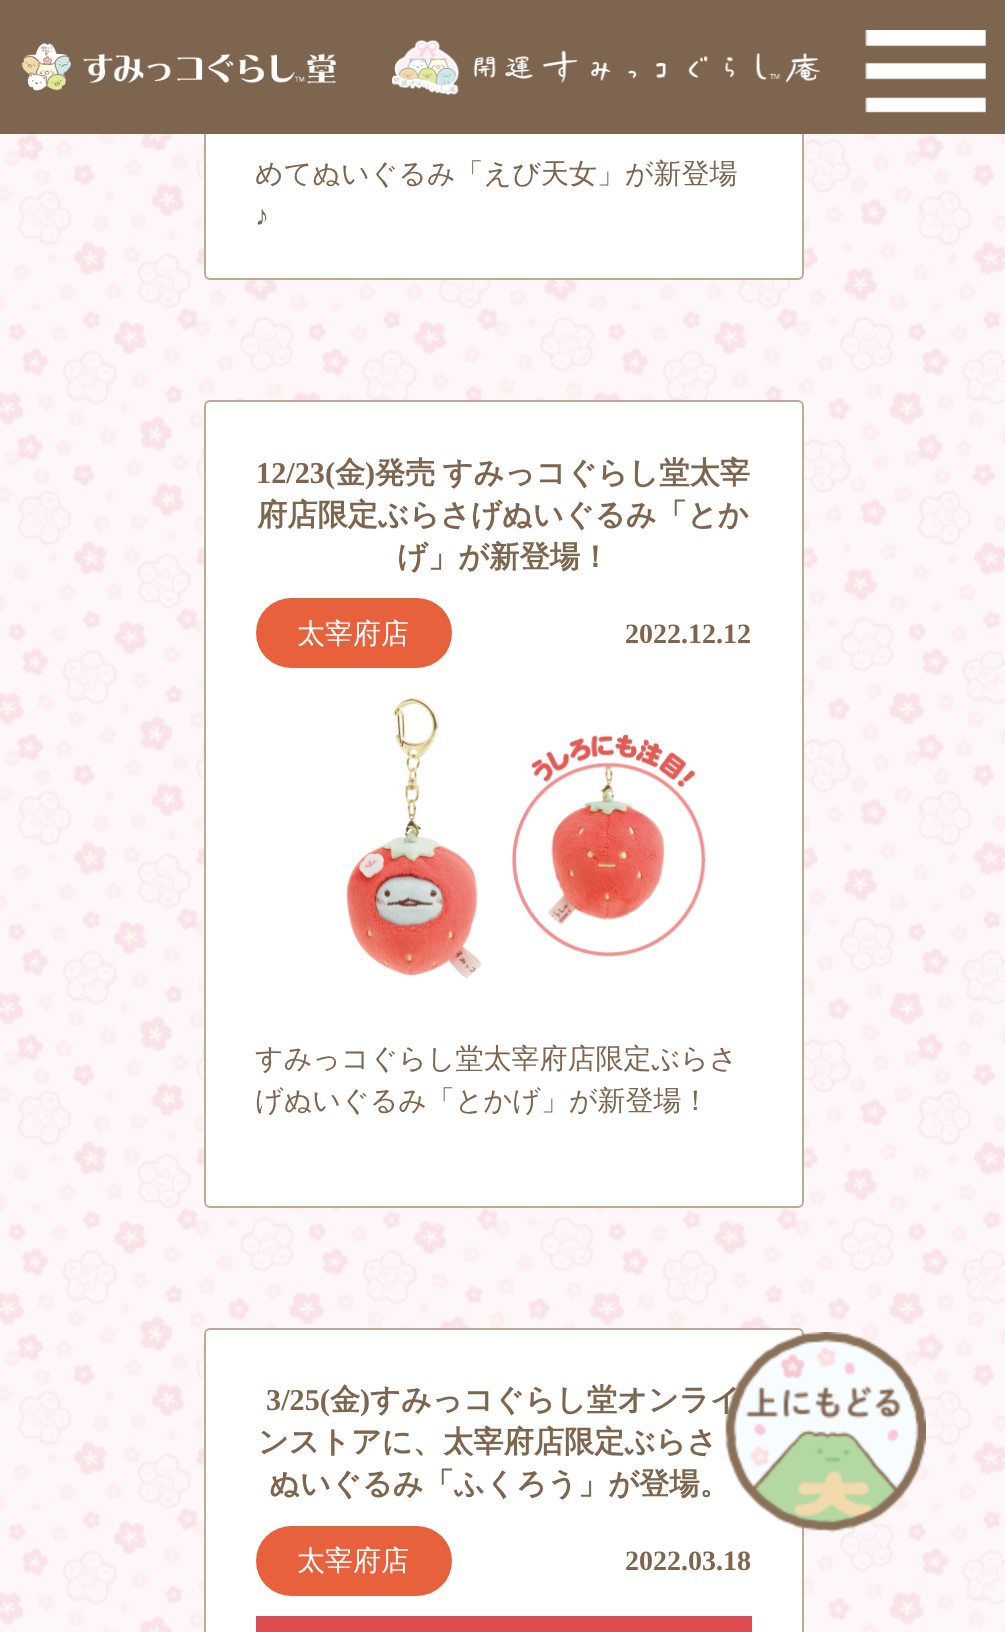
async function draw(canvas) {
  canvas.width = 1005
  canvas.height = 1632
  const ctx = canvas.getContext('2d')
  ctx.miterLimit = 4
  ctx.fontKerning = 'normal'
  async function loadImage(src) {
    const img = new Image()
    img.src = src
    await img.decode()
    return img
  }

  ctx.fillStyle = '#fff'
  ctx.fillRect(0, 0, 1005, 1632)
  ctx.drawImage(await loadImage('image0.png'), 0, 134, 1005, 1498)
  ctx.beginPath()
  ctx.roundRect(205, -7, 598, 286, 5)
  ctx.fill()
  ctx.strokeStyle = '#beaa9b'
  ctx.lineWidth = 2
  ctx.stroke()
  ctx.fillStyle = '#7e654f'
  ctx.fillRect(0, 0, 1005, 134)
  ctx.drawImage(await loadImage('image1.png'), 21, 43, 315, 48)
  ctx.drawImage(await loadImage('image2.png'), 392, 39, 428, 57)
  ctx.drawImage(await loadImage('image3.png'), 865, 30, 121, 83)
  ctx.font = '500 28px WenQuanYi Zen Hei'
  ctx.fillStyle = '#7e654e'
  ctx.fillText('めてぬいぐるみ「えび天女」が新登場', 255, 183)
  ctx.font = '28px Liberation Serif'
  ctx.fillText('♪', 255, 225)
  ctx.fillStyle = '#fff'
  ctx.beginPath()
  ctx.roundRect(205, 401, 598, 806, 5)
  ctx.fill()
  ctx.stroke()
  ctx.font = 'bold 30.25px Liberation Serif'
  ctx.fillStyle = '#7e654e'
  ctx.fillText('12/23(', 256, 483)
  ctx.font = 'bold 30.25px WenQuanYi Zen Hei'
  ctx.fillText('金', 335, 483)
  ctx.font = 'bold 30.25px Liberation Serif'
  ctx.fillText(')', 365, 483)
  ctx.wordSpacing = '-2px'
  ctx.font = 'bold 30.25px WenQuanYi Zen Hei'
  ctx.fillText('発売 すみっコぐらし堂太宰', 375, 483)
  ctx.wordSpacing = '0px'
  ctx.fillText('府店限定ぶらさげぬいぐるみ「とか', 257, 525)
  ctx.fillText('げ」が新登場！', 397, 567)
  ctx.fillStyle = '#e6613c'
  ctx.beginPath()
  ctx.roundRect(256, 598, 196, 70, 35)
  ctx.fill()
  ctx.font = '500 28px WenQuanYi Zen Hei'
  ctx.fillStyle = '#fff'
  ctx.fillText('太宰府店', 297, 643)
  ctx.font = 'bold 28px Liberation Serif'
  ctx.fillStyle = '#7e654e'
  ctx.fillText('2022.12.12', 625, 643)
  ctx.drawImage(await loadImage('image4.png'), 346, 698, 360, 281)
  ctx.font = '500 28px WenQuanYi Zen Hei'
  ctx.fillText('すみっコぐらし堂太宰府店限定ぶらさ', 255, 1068)
  ctx.fillText('げぬいぐるみ「とかげ」が新登場！', 255, 1110)
  ctx.fillStyle = '#fff'
  ctx.beginPath()
  ctx.roundRect(205, 1329, 598, 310, 5)
  ctx.fill()
  ctx.stroke()
  ctx.font = 'bold 30.25px Liberation Serif'
  ctx.fillStyle = '#7e654e'
  ctx.fillText('3/25(', 266, 1410)
  ctx.font = 'bold 30.25px WenQuanYi Zen Hei'
  ctx.fillText('金', 330, 1410)
  ctx.font = 'bold 30.25px Liberation Serif'
  ctx.fillText(')', 360, 1410)
  ctx.font = 'bold 30.25px WenQuanYi Zen Hei'
  ctx.fillText('すみっコぐらし堂オンライ', 370, 1410)
  ctx.fillText('ンストアに、太宰府店限定ぶらさ', 258, 1452)
  ctx.fillText('ぬいぐるみ「ふくろう」が登場。', 269, 1494)
  ctx.fillStyle = '#e6613c'
  ctx.beginPath()
  ctx.roundRect(256, 1526, 196, 70, 35)
  ctx.fill()
  ctx.font = '500 28px WenQuanYi Zen Hei'
  ctx.fillStyle = '#fff'
  ctx.fillText('太宰府店', 297, 1570)
  ctx.font = 'bold 28px Liberation Serif'
  ctx.fillStyle = '#7e654e'
  ctx.fillText('2022.03.18', 625, 1570)
  ctx.fillStyle = '#dd4e52'
  ctx.fillRect(256, 1616, 496, 16)
  ctx.drawImage(await loadImage('image5.png'), 725, 1332, 201, 200)
}

draw(document.querySelector('canvas'))
